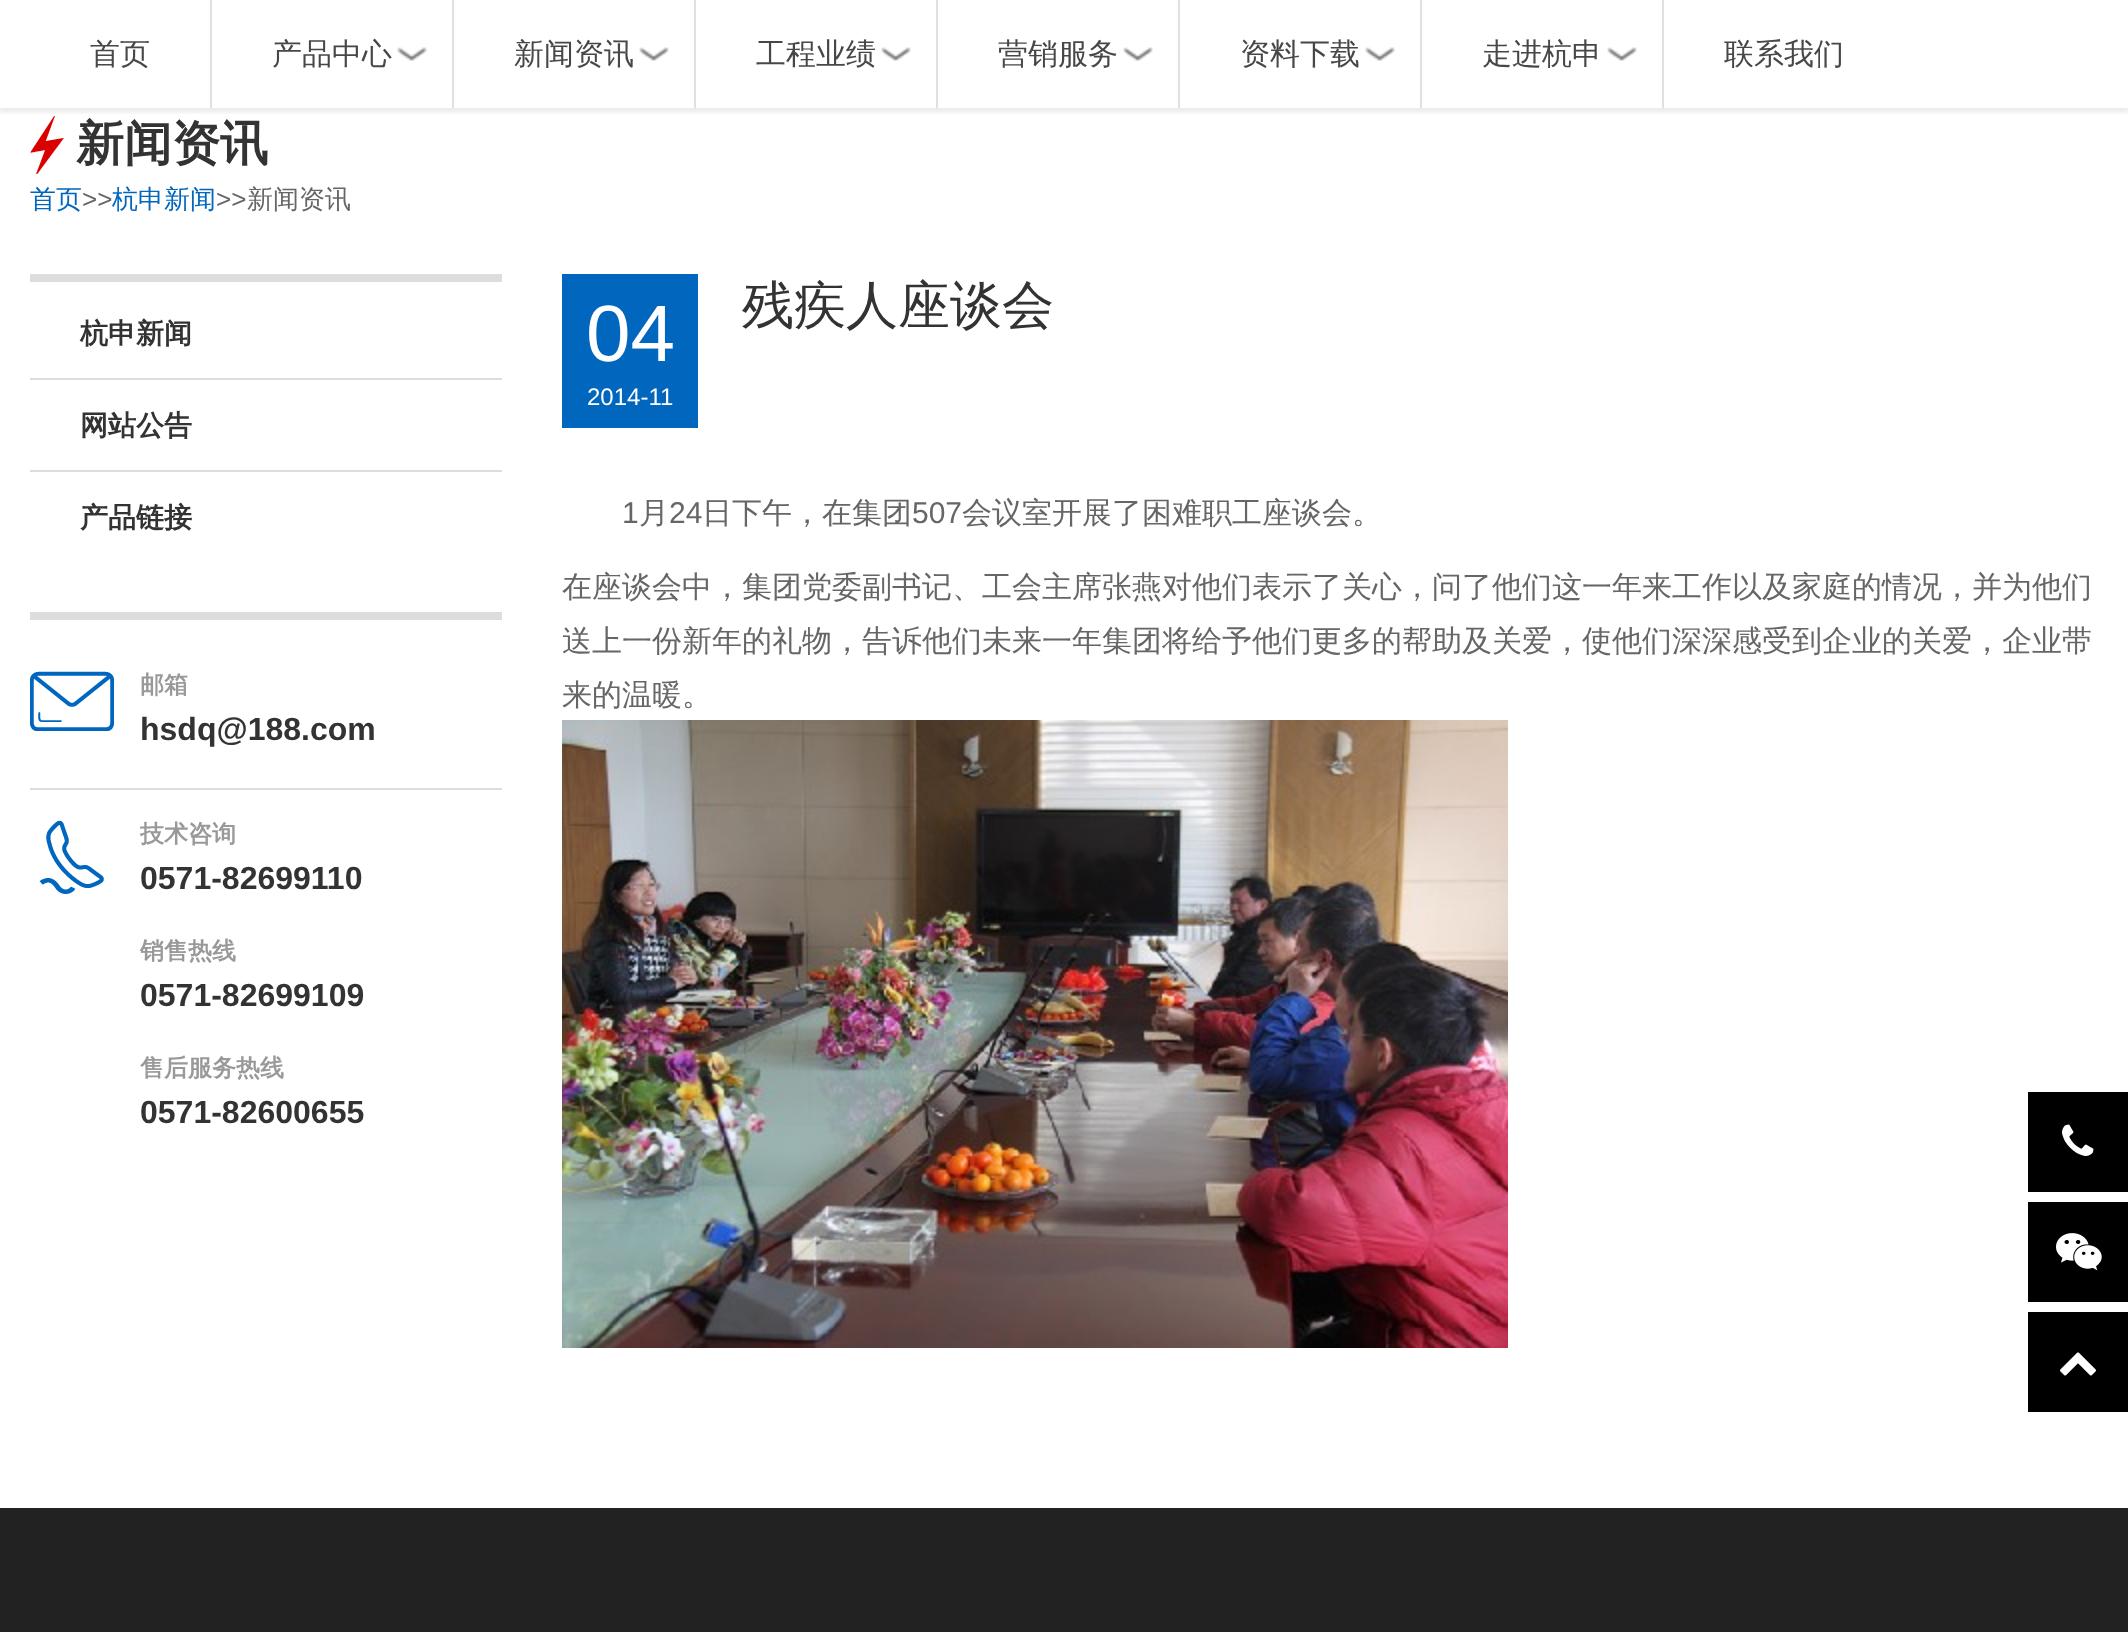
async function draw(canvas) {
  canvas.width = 2128
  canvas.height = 1632
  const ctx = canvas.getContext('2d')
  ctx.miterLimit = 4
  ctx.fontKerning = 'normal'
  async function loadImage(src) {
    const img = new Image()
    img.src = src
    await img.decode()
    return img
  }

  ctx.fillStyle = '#fff'
  ctx.fillRect(0, 0, 2128, 1632)
  ctx.drawImage(await loadImage('image1.png'), 30, 116, 34, 58)
  ctx.save()
  ctx.beginPath()
  ctx.rect(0, 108, 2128, 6)
  ctx.clip()
  ctx.fillStyle = '#00000017'
  ctx.filter = 'blur(3px)'
  ctx.beginPath()
  ctx.rect(-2, 0, 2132, 112)
  ctx.fill()
  ctx.filter = 'none'
  ctx.restore()
  ctx.fillStyle = '#e0e0e0'
  ctx.fillRect(210, 0, 2, 108)
  ctx.font = '500 30px WenQuanYi Zen Hei'
  ctx.fillStyle = '#474747'
  ctx.fillText('首页', 90, 64)
  ctx.fillStyle = '#e0e0e0'
  ctx.fillRect(452, 0, 2, 108)
  ctx.drawImage(await loadImage('image0.png'), 397, 47, 30, 14)
  ctx.fillStyle = '#474747'
  ctx.fillText('产品中心', 272, 64)
  ctx.fillStyle = '#e0e0e0'
  ctx.fillRect(694, 0, 2, 108)
  ctx.drawImage(await loadImage('image0.png'), 639, 47, 30, 14)
  ctx.fillStyle = '#474747'
  ctx.fillText('新闻资讯', 514, 64)
  ctx.fillStyle = '#e0e0e0'
  ctx.fillRect(936, 0, 2, 108)
  ctx.drawImage(await loadImage('image0.png'), 881, 47, 30, 14)
  ctx.fillStyle = '#474747'
  ctx.fillText('工程业绩', 756, 64)
  ctx.fillStyle = '#e0e0e0'
  ctx.fillRect(1178, 0, 2, 108)
  ctx.drawImage(await loadImage('image0.png'), 1123, 47, 30, 14)
  ctx.fillStyle = '#474747'
  ctx.fillText('营销服务', 998, 64)
  ctx.fillStyle = '#e0e0e0'
  ctx.fillRect(1420, 0, 2, 108)
  ctx.drawImage(await loadImage('image0.png'), 1365, 47, 30, 14)
  ctx.fillStyle = '#474747'
  ctx.fillText('资料下载', 1240, 64)
  ctx.fillStyle = '#e0e0e0'
  ctx.fillRect(1662, 0, 2, 108)
  ctx.drawImage(await loadImage('image0.png'), 1607, 47, 30, 14)
  ctx.fillStyle = '#474747'
  ctx.fillText('走进杭申', 1482, 64)
  ctx.fillText('联系我们', 1724, 64)
  ctx.font = 'bold 48px WenQuanYi Zen Hei'
  ctx.fillStyle = '#333'
  ctx.fillText('新闻资讯', 76, 160)
  ctx.font = '500 26px WenQuanYi Zen Hei'
  ctx.fillStyle = '#0066be'
  ctx.fillText('首页', 30, 208)
  ctx.font = '26px Liberation Sans'
  ctx.fillStyle = '#666'
  ctx.fillText('>>', 82, 208)
  ctx.font = '500 26px WenQuanYi Zen Hei'
  ctx.fillStyle = '#0066be'
  ctx.fillText('杭申新闻', 112, 208)
  ctx.font = '26px Liberation Sans'
  ctx.fillStyle = '#666'
  ctx.fillText('>>', 216, 208)
  ctx.font = '500 26px WenQuanYi Zen Hei'
  ctx.fillText('新闻资讯', 247, 208)
  ctx.fillStyle = '#ddd'
  ctx.fillRect(30, 274, 472, 8)
  ctx.fillRect(30, 378, 472, 2)
  ctx.font = 'bold 28px WenQuanYi Zen Hei'
  ctx.fillStyle = '#333'
  ctx.fillText('杭申新闻', 80, 343)
  ctx.fillStyle = '#ddd'
  ctx.fillRect(30, 470, 472, 2)
  ctx.fillStyle = '#333'
  ctx.fillText('网站公告', 80, 435)
  ctx.fillText('产品链接', 80, 527)
  ctx.fillStyle = '#ddd'
  ctx.fillRect(30, 612, 472, 8)
  ctx.drawImage(await loadImage('image2.png'), 30, 671, 84, 60)
  ctx.fillRect(30, 788, 472, 2)
  ctx.font = 'bold 24px WenQuanYi Zen Hei'
  ctx.fillStyle = '#999'
  ctx.fillText('邮箱', 140, 693)
  ctx.font = 'bold 32px Liberation Sans'
  ctx.fillStyle = '#333'
  ctx.fillText('hsdq@188.com', 140, 740)
  ctx.drawImage(await loadImage('image3.png'), 39, 820, 65, 74)
  ctx.font = 'bold 24px WenQuanYi Zen Hei'
  ctx.fillStyle = '#999'
  ctx.fillText('技术咨询', 140, 842)
  ctx.font = 'bold 32px Liberation Sans'
  ctx.fillStyle = '#333'
  ctx.fillText('0571-82699110', 140, 889)
  ctx.font = 'bold 24px WenQuanYi Zen Hei'
  ctx.fillStyle = '#999'
  ctx.fillText('销售热线', 140, 959)
  ctx.font = 'bold 32px Liberation Sans'
  ctx.fillStyle = '#333'
  ctx.fillText('0571-82699109', 140, 1006)
  ctx.font = 'bold 24px WenQuanYi Zen Hei'
  ctx.fillStyle = '#999'
  ctx.fillText('售后服务热线', 140, 1076)
  ctx.font = 'bold 32px Liberation Sans'
  ctx.fillStyle = '#333'
  ctx.fillText('0571-82600655', 140, 1123)
  ctx.fillStyle = '#0066be'
  ctx.fillRect(562, 274, 136, 154)
  ctx.font = '80px Liberation Sans'
  ctx.fillStyle = '#fff'
  ctx.fillText('04', 586, 361)
  ctx.font = '24px Liberation Sans'
  ctx.fillText('2014-11', 587, 405)
  ctx.font = '500 52px WenQuanYi Zen Hei'
  ctx.fillStyle = '#333'
  ctx.fillText('残疾人座谈会', 742, 323)
  ctx.font = '30px Liberation Sans'
  ctx.fillStyle = '#666'
  ctx.fillText('1', 622, 523)
  ctx.font = '500 30px WenQuanYi Zen Hei'
  ctx.fillText('月', 639, 523)
  ctx.font = '30px Liberation Sans'
  ctx.fillText('24', 669, 523)
  ctx.font = '500 30px WenQuanYi Zen Hei'
  ctx.fillText('日下午，在集团', 702, 523)
  ctx.font = '30px Liberation Sans'
  ctx.fillText('507', 912, 523)
  ctx.font = '500 30px WenQuanYi Zen Hei'
  ctx.fillText('会议室开展了困难职工座谈会。', 962, 523)
  ctx.fillText('在座谈会中，集团党委副书记、工会主席张燕对他们表示了关心，问了他们这一年来工作以及家庭的情况，并为他们', 562, 597)
  ctx.fillText('送上一份新年的礼物，告诉他们未来一年集团将给予他们更多的帮助及关爱，使他们深深感受到企业的关爱，企业带', 562, 651)
  ctx.fillText('来的温暖。', 562, 705)
  ctx.drawImage(await loadImage('image4.png'), 562, 720, 946, 628)
  ctx.fillStyle = '#000'
  ctx.fillRect(2028, 1092, 100, 100)
  ctx.drawImage(await loadImage('image5.png'), 2062, 1124, 32, 32)
  ctx.fillRect(2028, 1202, 100, 100)
  ctx.drawImage(await loadImage('image6.png'), 2056, 1233, 46, 38)
  ctx.fillRect(2028, 1312, 100, 100)
  ctx.drawImage(await loadImage('image7.png'), 2060, 1352, 36, 24)
  ctx.fillStyle = '#222'
  ctx.fillRect(0, 1508, 2128, 124)
}

draw(document.querySelector('canvas'))
